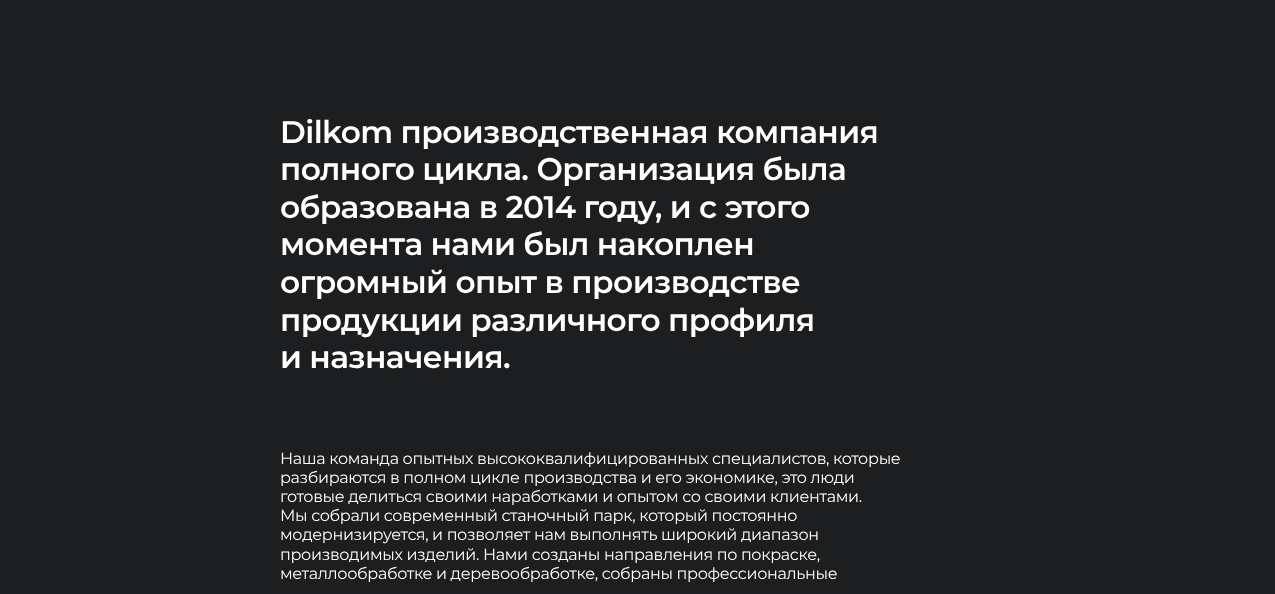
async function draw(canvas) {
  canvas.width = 1275
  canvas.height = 594
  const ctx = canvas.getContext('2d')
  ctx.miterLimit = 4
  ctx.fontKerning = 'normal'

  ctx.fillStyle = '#1d1e1f'
  ctx.fillRect(0, 0, 1275, 594)
  ctx.letterSpacing = '-0.6px'
  ctx.font = '600 31.25px Montserrat'
  ctx.fillStyle = '#fff'
  ctx.fillText('Dilkom производственная компания', 280, 143)
  ctx.fillText('полного цикла. Организация была', 280, 180)
  ctx.fillText('образована в 2014 году, и с этого', 280, 218)
  ctx.fillText('момента нами был накоплен', 280, 255)
  ctx.fillText('огромный опыт в производстве', 280, 293)
  ctx.fillText('продукции различного профиля', 280, 331)
  ctx.fillText('и назначения.', 280, 368)
  ctx.letterSpacing = '-0.32px'
  ctx.font = '16px Montserrat'
  ctx.fillText('Наша команда опытных высококвалифицированных специалистов, которые', 280, 464)
  ctx.fillText('разбираются в полном цикле производства и его экономике, это люди', 280, 483)
  ctx.fillText('готовые делиться своими наработками и опытом со своими клиентами.', 280, 502)
  ctx.fillText('Мы собрали современный станочный парк, который постоянно', 280, 521)
  ctx.fillText('модернизируется, и позволяет нам выполнять широкий диапазон', 280, 540)
  ctx.fillText('производимых изделий. Нами созданы направления по покраске,', 280, 560)
  ctx.fillText('металлообработке и деревообработке, собраны профессиональные', 280, 579)
}

draw(document.querySelector('canvas'))
